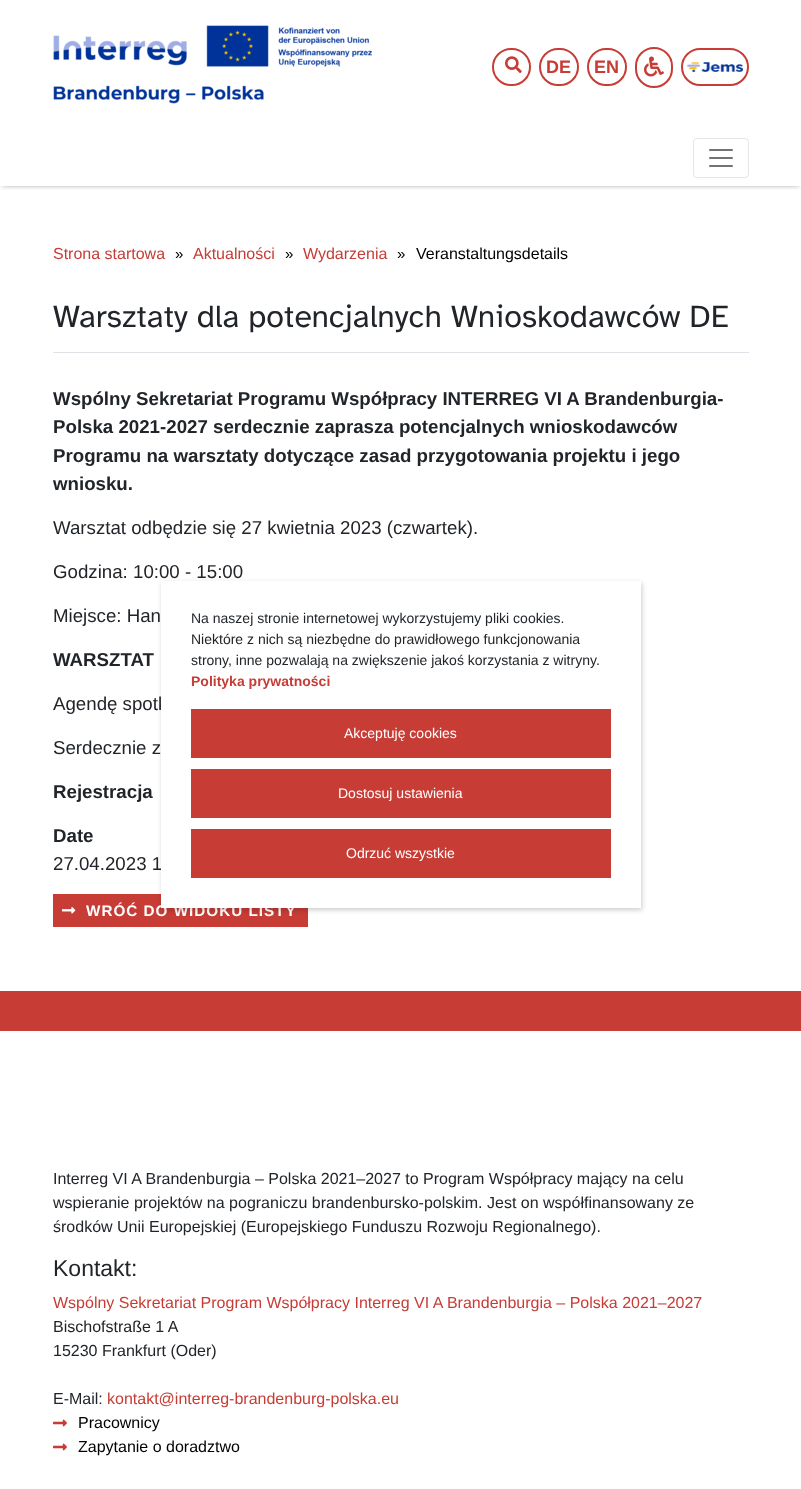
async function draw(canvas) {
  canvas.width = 801
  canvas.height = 1489
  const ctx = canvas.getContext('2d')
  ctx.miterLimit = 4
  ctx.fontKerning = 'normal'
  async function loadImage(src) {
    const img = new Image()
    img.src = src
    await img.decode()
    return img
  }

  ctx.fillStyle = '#fff'
  ctx.fillRect(0, 0, 801, 1489)
  ctx.save()
  ctx.beginPath()
  ctx.rect(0, 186, 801, 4)
  ctx.clip()
  ctx.fillStyle = '#0000004d'
  ctx.filter = 'blur(2.5px)'
  ctx.beginPath()
  ctx.rect(2, 4, 797, 182)
  ctx.fill()
  ctx.filter = 'none'
  ctx.restore()
  ctx.drawImage(await loadImage('image0.png'), 53, 25, 319, 79)
  ctx.beginPath()
  ctx.roundRect(493, 49, 37, 36, 18)
  ctx.strokeStyle = '#c73c35'
  ctx.lineWidth = 2
  ctx.stroke()
  ctx.drawImage(await loadImage('image1.png'), 505, 56, 17, 17)
  ctx.beginPath()
  ctx.roundRect(540, 49, 38, 36, 18)
  ctx.stroke()
  ctx.font = 'bold 18px Liberation Sans'
  ctx.fillStyle = '#c73c35'
  ctx.fillText('DE', 546, 73)
  ctx.beginPath()
  ctx.roundRect(588, 49, 38, 36, 18)
  ctx.stroke()
  ctx.fillText('EN', 594, 73)
  ctx.beginPath()
  ctx.roundRect(636, 48, 36, 39, 18)
  ctx.stroke()
  ctx.drawImage(await loadImage('image2.png'), 644, 56, 20, 21)
  ctx.beginPath()
  ctx.roundRect(682, 49, 66, 36, 18)
  ctx.stroke()
  ctx.drawImage(await loadImage('image3.png'), 687, 62, 56, 10)
  ctx.beginPath()
  ctx.roundRect(693.5, 138.5, 55, 39, 3.5)
  ctx.strokeStyle = '#e6e6e6'
  ctx.lineWidth = 1
  ctx.stroke()
  ctx.drawImage(await loadImage('image4.png'), 709, 149, 24, 18)
  ctx.font = '16px Liberation Sans'
  ctx.fillText('Strona startowa', 53, 259)
  ctx.font = '15px Liberation Sans'
  ctx.fillStyle = '#000'
  ctx.fillText('»', 175, 259)
  ctx.font = '16px Liberation Sans'
  ctx.fillStyle = '#c73c35'
  ctx.fillText('Aktualności', 193, 259)
  ctx.font = '15px Liberation Sans'
  ctx.fillStyle = '#000'
  ctx.fillText('»', 285, 259)
  ctx.font = '16px Liberation Sans'
  ctx.fillStyle = '#c73c35'
  ctx.fillText('Wydarzenia', 303, 259)
  ctx.font = '15px Liberation Sans'
  ctx.fillStyle = '#000'
  ctx.fillText('»', 397, 259)
  ctx.font = '16px Liberation Sans'
  ctx.fillText('Veranstaltungsdetails', 416, 259)
  ctx.fillStyle = '#dee2e6'
  ctx.fillRect(53, 352, 696, 1)
  ctx.font = '32px Atkinson Hyperlegible'
  ctx.fillStyle = '#212529'
  ctx.fillText('Warsztaty dla potencjalnych Wnioskodawców DE', 53, 327)
  ctx.font = 'bold 18.7px Liberation Sans'
  ctx.fillText('Wspólny Sekretariat Programu Współpracy INTERREG VI A Brandenburgia-', 53, 405)
  ctx.fillText('Polska 2021-2027 serdecznie zaprasza potencjalnych wnioskodawców', 53, 433)
  ctx.fillText('Programu na warsztaty dotyczące zasad przygotowania projektu i jego', 53, 462)
  ctx.fillText('wniosku.', 53, 490)
  ctx.font = '18.7px Liberation Sans'
  ctx.fillText('Warsztat odbędzie się 27 kwietnia 2023 (czwartek).', 53, 534)
  ctx.fillText('Godzina: 10:00 - 15:00', 53, 578)
  ctx.fillText('Miejsce: Han', 53, 622)
  ctx.font = 'bold 18.7px Liberation Sans'
  ctx.fillText('WARSZTAT', 53, 666)
  ctx.font = '18.7px Liberation Sans'
  ctx.fillText('Agendę spotk', 53, 710)
  ctx.fillText('Serdecznie z', 53, 754)
  ctx.font = 'bold 18.7px Liberation Sans'
  ctx.fillText('Rejestracja', 53, 798)
  ctx.fillText('Date', 53, 842)
  ctx.font = '18.7px Liberation Sans'
  ctx.fillText('27.04.2023 1', 53, 870)
  ctx.fillStyle = '#c73c35'
  ctx.fillRect(53, 894, 255, 33)
  ctx.drawImage(await loadImage('image5.png'), 62, 907, 14, 7)
  ctx.letterSpacing = '1px'
  ctx.font = 'bold 15.25px Liberation Sans'
  ctx.fillStyle = '#fff'
  ctx.fillText('WRÓĆ DO WIDOKU LISTY', 86, 916)
  ctx.fillStyle = '#00000033'
  ctx.filter = 'blur(2.5px)'
  ctx.beginPath()
  ctx.rect(162, 583, 480, 327)
  ctx.fill()
  ctx.filter = 'none'
  ctx.fillStyle = '#fff'
  ctx.fillRect(161, 581, 480, 327)
  ctx.letterSpacing = '0px'
  ctx.font = '14px Liberation Sans'
  ctx.fillStyle = '#212529'
  ctx.fillText('Na naszej stronie internetowej wykorzystujemy pliki cookies.', 191, 623)
  ctx.fillText('Niektóre z nich są niezbędne do prawidłowego funkcjonowania', 191, 644)
  ctx.fillText('strony, inne pozwalają na zwiększenie jakoś korzystania z witryny.', 191, 665)
  ctx.font = 'bold 14px Liberation Sans'
  ctx.fillStyle = '#c73c35'
  ctx.fillText('Polityka prywatności', 191, 686)
  ctx.fillRect(191, 709, 420, 49)
  ctx.font = '14px Liberation Sans'
  ctx.fillStyle = '#fff'
  ctx.fillText('Akceptuję cookies', 344, 738)
  ctx.fillStyle = '#c73c35'
  ctx.fillRect(191, 829, 420, 49)
  ctx.fillStyle = '#fff'
  ctx.fillText('Odrzuć wszystkie', 346, 858)
  ctx.fillStyle = '#c73c35'
  ctx.fillRect(191, 769, 420, 49)
  ctx.fillStyle = '#fff'
  ctx.fillText('Dostosuj ustawienia', 338, 798)
  ctx.fillStyle = '#c73c35'
  ctx.fillRect(0, 991, 801, 40)
  ctx.font = '16px Liberation Sans'
  ctx.fillStyle = '#212529'
  ctx.fillText('Interreg VI A Brandenburgia – Polska 2021–2027 to Program Współpracy mający na celu', 53, 1184)
  ctx.fillText('wspieranie projektów na pograniczu brandenbursko-polskim. Jest on współfinansowany ze', 53, 1208)
  ctx.fillText('środków Unii Europejskiej (Europejskiego Funduszu Rozwoju Regionalnego).', 53, 1232)
  ctx.font = '23px Liberation Sans'
  ctx.fillText('Kontakt:', 53, 1276)
  ctx.font = '16px Liberation Sans'
  ctx.fillStyle = '#c73c35'
  ctx.fillText('Wspólny Sekretariat Program Współpracy Interreg VI A Brandenburgia – Polska 2021–2027', 53, 1308)
  ctx.fillStyle = '#212529'
  ctx.fillText('Bischofstraße 1 A', 53, 1332)
  ctx.fillText('15230 Frankfurt (Oder)', 53, 1356)
  ctx.fillText('E-Mail:', 53, 1404)
  ctx.fillStyle = '#c73c35'
  ctx.fillText('kontakt@interreg-brandenburg-polska.eu', 107, 1404)
  ctx.drawImage(await loadImage('image6.png'), 53, 1419, 14, 8)
  ctx.fillStyle = '#000'
  ctx.fillText('Pracownicy', 78, 1428)
  ctx.drawImage(await loadImage('image6.png'), 53, 1443, 14, 8)
  ctx.fillText('Zapytanie o doradztwo', 78, 1452)
}

draw(document.querySelector('canvas'))
